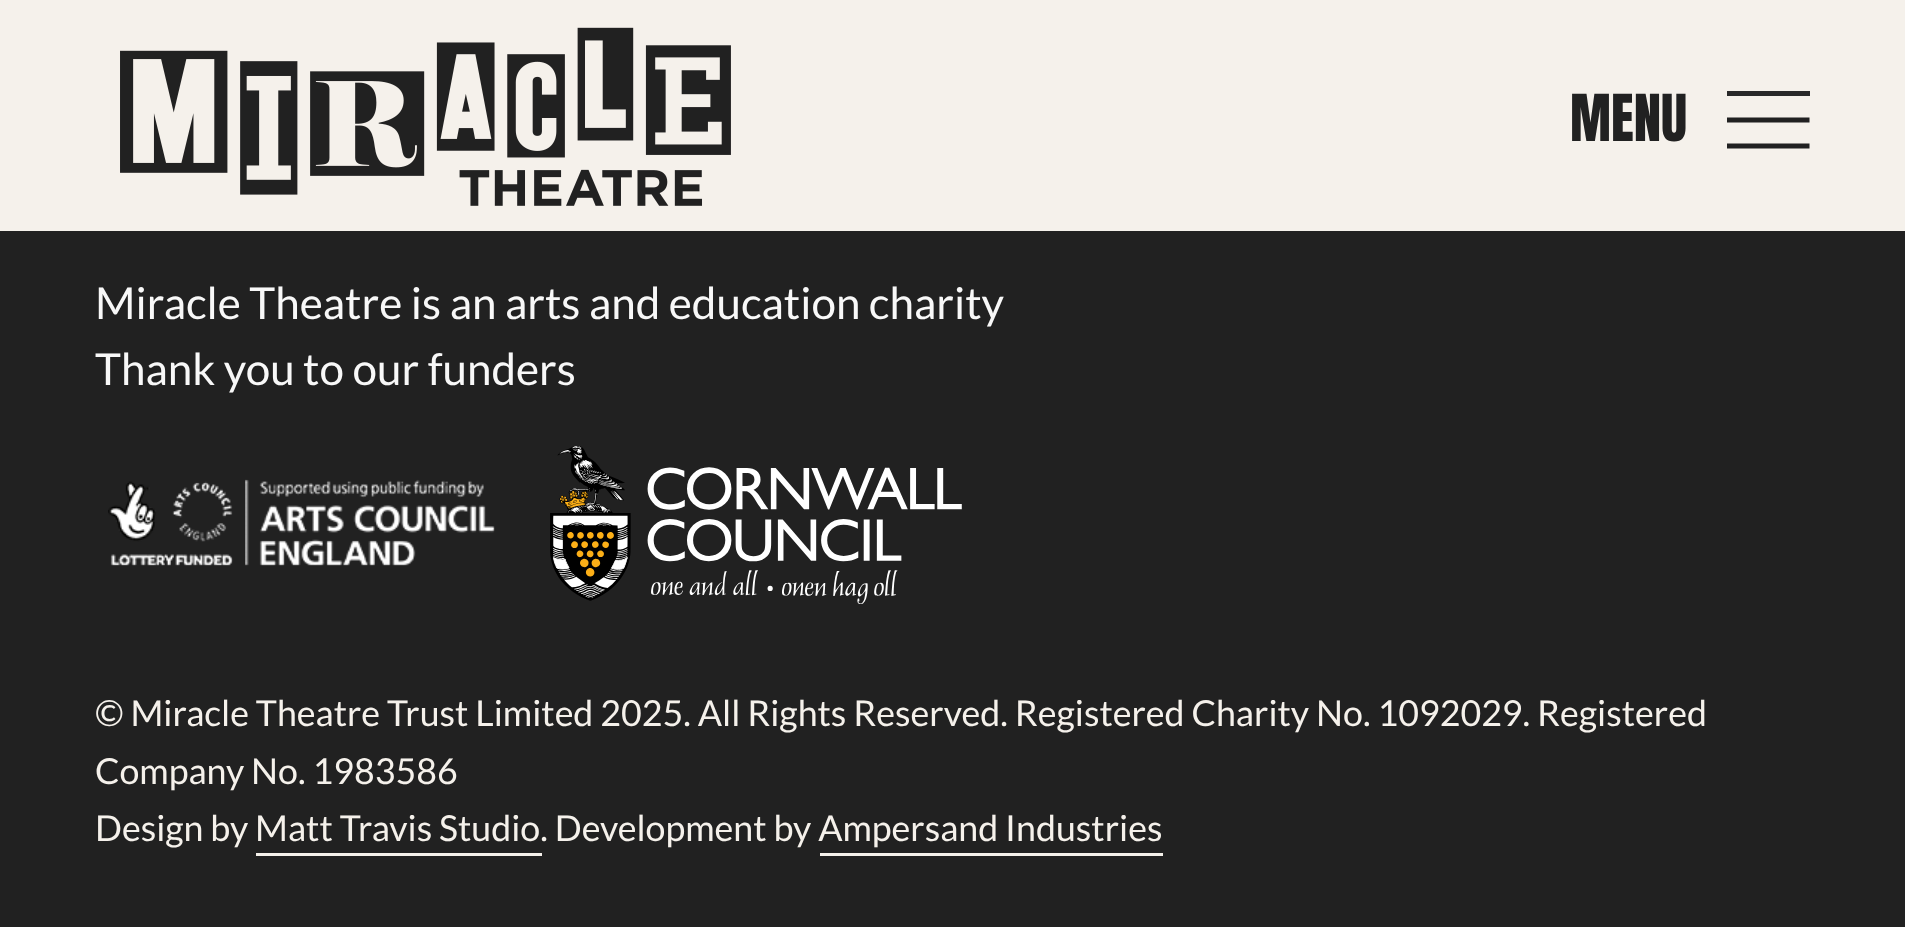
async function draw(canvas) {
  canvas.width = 1905
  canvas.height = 927
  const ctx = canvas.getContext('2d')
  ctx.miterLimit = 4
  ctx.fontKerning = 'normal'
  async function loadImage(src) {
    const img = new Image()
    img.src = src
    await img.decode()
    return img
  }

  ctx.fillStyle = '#212121'
  ctx.fillRect(0, 0, 1905, 927)
  ctx.fillStyle = '#f5f1eb'
  ctx.fillRect(0, 0, 1905, 231)
  ctx.drawImage(await loadImage('image0.png'), 120, 27, 611, 179)
  ctx.font = '55px Anton'
  ctx.fillStyle = '#212121'
  ctx.fillText('MENU', 1570, 141)
  ctx.fillStyle = '#292929'
  ctx.fillRect(1727, 91, 83, 5)
  ctx.beginPath()
  ctx.moveTo(1727, 120)
  ctx.lineTo(1809.5, 120)
  ctx.strokeStyle = '#212121'
  ctx.lineWidth = 4.8
  ctx.stroke()
  ctx.beginPath()
  ctx.moveTo(1727, 146)
  ctx.lineTo(1809.5, 146)
  ctx.stroke()
  ctx.font = '44px Lato'
  ctx.fillStyle = '#f8f8f8'
  ctx.fillText('Miracle Theatre is an arts and education charity', 95, 319)
  ctx.fillText('Thank you to our funders', 95, 385)
  ctx.drawImage(await loadImage('image1.png'), 108, 479, 387, 87)
  ctx.drawImage(await loadImage('image2.png'), 550, 446, 412, 158)
  ctx.font = '35.75px Lato'
  ctx.fillStyle = '#f5f1eb'
  ctx.fillText('© Miracle Theatre Trust Limited 2025. All Rights Reserved. Registered Charity No. 1092029. Registered', 95, 726)
  ctx.fillText('Company No. 1983586', 95, 784)
  ctx.fillText('Design by Matt Travis Studio. Development by Ampersand Industries', 95, 841)
  ctx.fillRect(256, 853, 286, 3)
  ctx.fillRect(820, 853, 343, 3)
}

draw(document.querySelector('canvas'))
